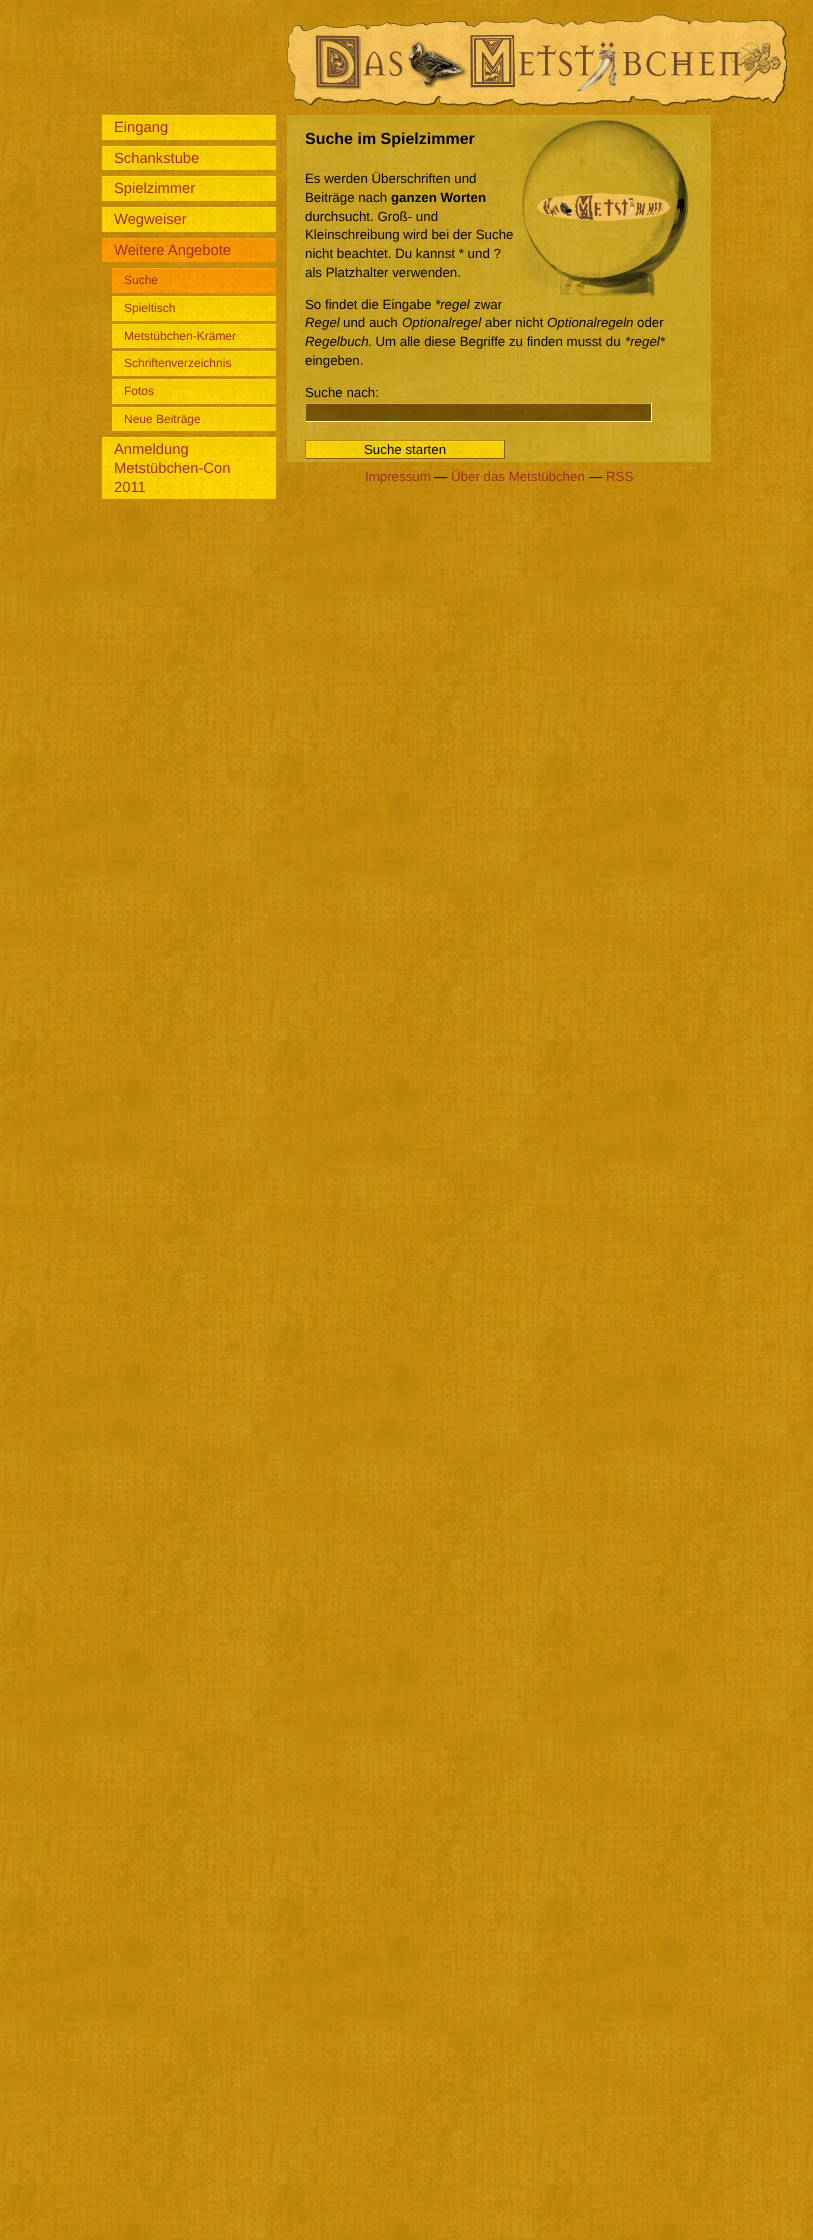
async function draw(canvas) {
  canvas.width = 813
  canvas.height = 2240
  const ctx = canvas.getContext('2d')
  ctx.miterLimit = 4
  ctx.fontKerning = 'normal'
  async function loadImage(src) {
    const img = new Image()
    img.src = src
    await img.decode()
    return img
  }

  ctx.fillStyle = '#fff'
  ctx.fillRect(0, 0, 813, 2240)
  ctx.drawImage(await loadImage('image0.png'), 0, 0, 813, 2240)
  ctx.drawImage(await loadImage('image1.png'), 287, 13, 500, 94)
  ctx.drawImage(await loadImage('image2.png'), 102, 115, 174, 25)
  ctx.font = '14.75px Liberation Sans'
  ctx.fillStyle = '#a52a2a'
  ctx.fillText('Eingang', 114, 132)
  ctx.drawImage(await loadImage('image3.png'), 102, 146, 174, 24)
  ctx.fillText('Schankstube', 114, 163)
  ctx.drawImage(await loadImage('image2.png'), 102, 176, 174, 25)
  ctx.fillText('Spielzimmer', 114, 193)
  ctx.drawImage(await loadImage('image2.png'), 102, 207, 174, 25)
  ctx.fillText('Wegweiser', 114, 224)
  ctx.drawImage(await loadImage('image4.png'), 102, 238, 174, 24)
  ctx.fillText('Weitere Angebote', 114, 255)
  ctx.drawImage(await loadImage('image5.png'), 112, 268, 164, 25)
  ctx.font = '12px Liberation Sans'
  ctx.fillText('Suche', 124, 284)
  ctx.drawImage(await loadImage('image6.png'), 112, 296, 164, 25)
  ctx.fillText('Spieltisch', 124, 312)
  ctx.drawImage(await loadImage('image7.png'), 112, 324, 164, 24)
  ctx.fillText('Metstübchen-Krämer', 124, 340)
  ctx.drawImage(await loadImage('image6.png'), 112, 351, 164, 25)
  ctx.fillText('Schriftenverzeichnis', 124, 367)
  ctx.drawImage(await loadImage('image6.png'), 112, 379, 164, 25)
  ctx.fillText('Fotos', 124, 395)
  ctx.drawImage(await loadImage('image7.png'), 112, 407, 164, 24)
  ctx.fillText('Neue Beiträge', 124, 423)
  ctx.drawImage(await loadImage('image8.png'), 102, 437, 174, 62)
  ctx.font = '14.75px Liberation Sans'
  ctx.fillText('Anmeldung', 114, 454)
  ctx.fillText('Metstübchen-Con', 114, 473)
  ctx.fillText('2011', 114, 492)
  ctx.drawImage(await loadImage('image9.png'), 287, 115, 424, 347)
  ctx.font = 'bold 16px Liberation Sans'
  ctx.fillStyle = '#000'
  ctx.fillText('Suche im Spielzimmer', 305, 144)
  ctx.drawImage(await loadImage('image10.png'), 519, 118, 170, 179)
  ctx.font = '13.3px Liberation Sans'
  ctx.fillText('Es werden Überschriften und', 305, 183)
  ctx.fillText('Beiträge nach', 305, 202)
  ctx.font = 'bold 13.3px Liberation Sans'
  ctx.fillText('ganzen Worten', 391, 202)
  ctx.font = '13.3px Liberation Sans'
  ctx.fillText('durchsucht. Groß- und', 305, 221)
  ctx.fillText('Kleinschreibung wird bei der Suche', 305, 239)
  ctx.fillText('nicht beachtet. Du kannst * und ?', 305, 258)
  ctx.fillText('als Platzhalter verwenden.', 305, 277)
  ctx.fillText('So findet die Eingabe', 305, 309)
  ctx.font = 'italic 13.3px Liberation Sans'
  ctx.fillText('*regel', 435, 309)
  ctx.font = '13.3px Liberation Sans'
  ctx.fillText('zwar', 474, 309)
  ctx.font = 'italic 13.3px Liberation Sans'
  ctx.fillText('Regel', 305, 327)
  ctx.font = '13.3px Liberation Sans'
  ctx.fillText('und auch', 343, 327)
  ctx.font = 'italic 13.3px Liberation Sans'
  ctx.fillText('Optionalregel', 402, 327)
  ctx.font = '13.3px Liberation Sans'
  ctx.fillText('aber nicht', 485, 327)
  ctx.font = 'italic 13.3px Liberation Sans'
  ctx.fillText('Optionalregeln', 547, 327)
  ctx.font = '13.3px Liberation Sans'
  ctx.fillText('oder', 637, 327)
  ctx.font = 'italic 13.3px Liberation Sans'
  ctx.fillText('Regelbuch', 305, 346)
  ctx.font = '13.3px Liberation Sans'
  ctx.fillText('. Um alle diese Begriffe zu finden musst du', 368, 346)
  ctx.font = 'italic 13.3px Liberation Sans'
  ctx.fillText('*regel*', 625, 346)
  ctx.font = '13.3px Liberation Sans'
  ctx.fillText('eingeben.', 305, 365)
  ctx.fillText('Suche nach:', 305, 397)
  ctx.drawImage(await loadImage('image11.png'), 306, 404, 345, 17)
  ctx.fillStyle = '#aaa'
  ctx.fillRect(305, 403, 347, 1)
  ctx.fillStyle = '#fff'
  ctx.fillRect(651, 403, 1, 19)
  ctx.fillRect(305, 421, 347, 1)
  ctx.fillStyle = '#aaa'
  ctx.fillRect(305, 403, 1, 19)
  ctx.drawImage(await loadImage('image12.png'), 306, 441, 198, 17)
  ctx.fillStyle = '#b8860b'
  ctx.fillRect(305, 440, 200, 1)
  ctx.fillStyle = '#7b5907'
  ctx.fillRect(504, 440, 1, 19)
  ctx.fillRect(305, 458, 200, 1)
  ctx.fillStyle = '#b8860b'
  ctx.fillRect(305, 440, 1, 19)
  ctx.fillStyle = '#000'
  ctx.fillText('Suche starten', 364, 454)
  ctx.fillStyle = '#a52a2a'
  ctx.fillText('Impressum', 365, 481)
  ctx.fillStyle = '#000'
  ctx.fillText('—', 434, 481)
  ctx.fillStyle = '#a52a2a'
  ctx.fillText('Über das Metstübchen', 451, 481)
  ctx.fillStyle = '#000'
  ctx.fillText('—', 589, 481)
  ctx.fillStyle = '#a52a2a'
  ctx.fillText('RSS', 606, 481)
}

draw(document.querySelector('canvas'))
